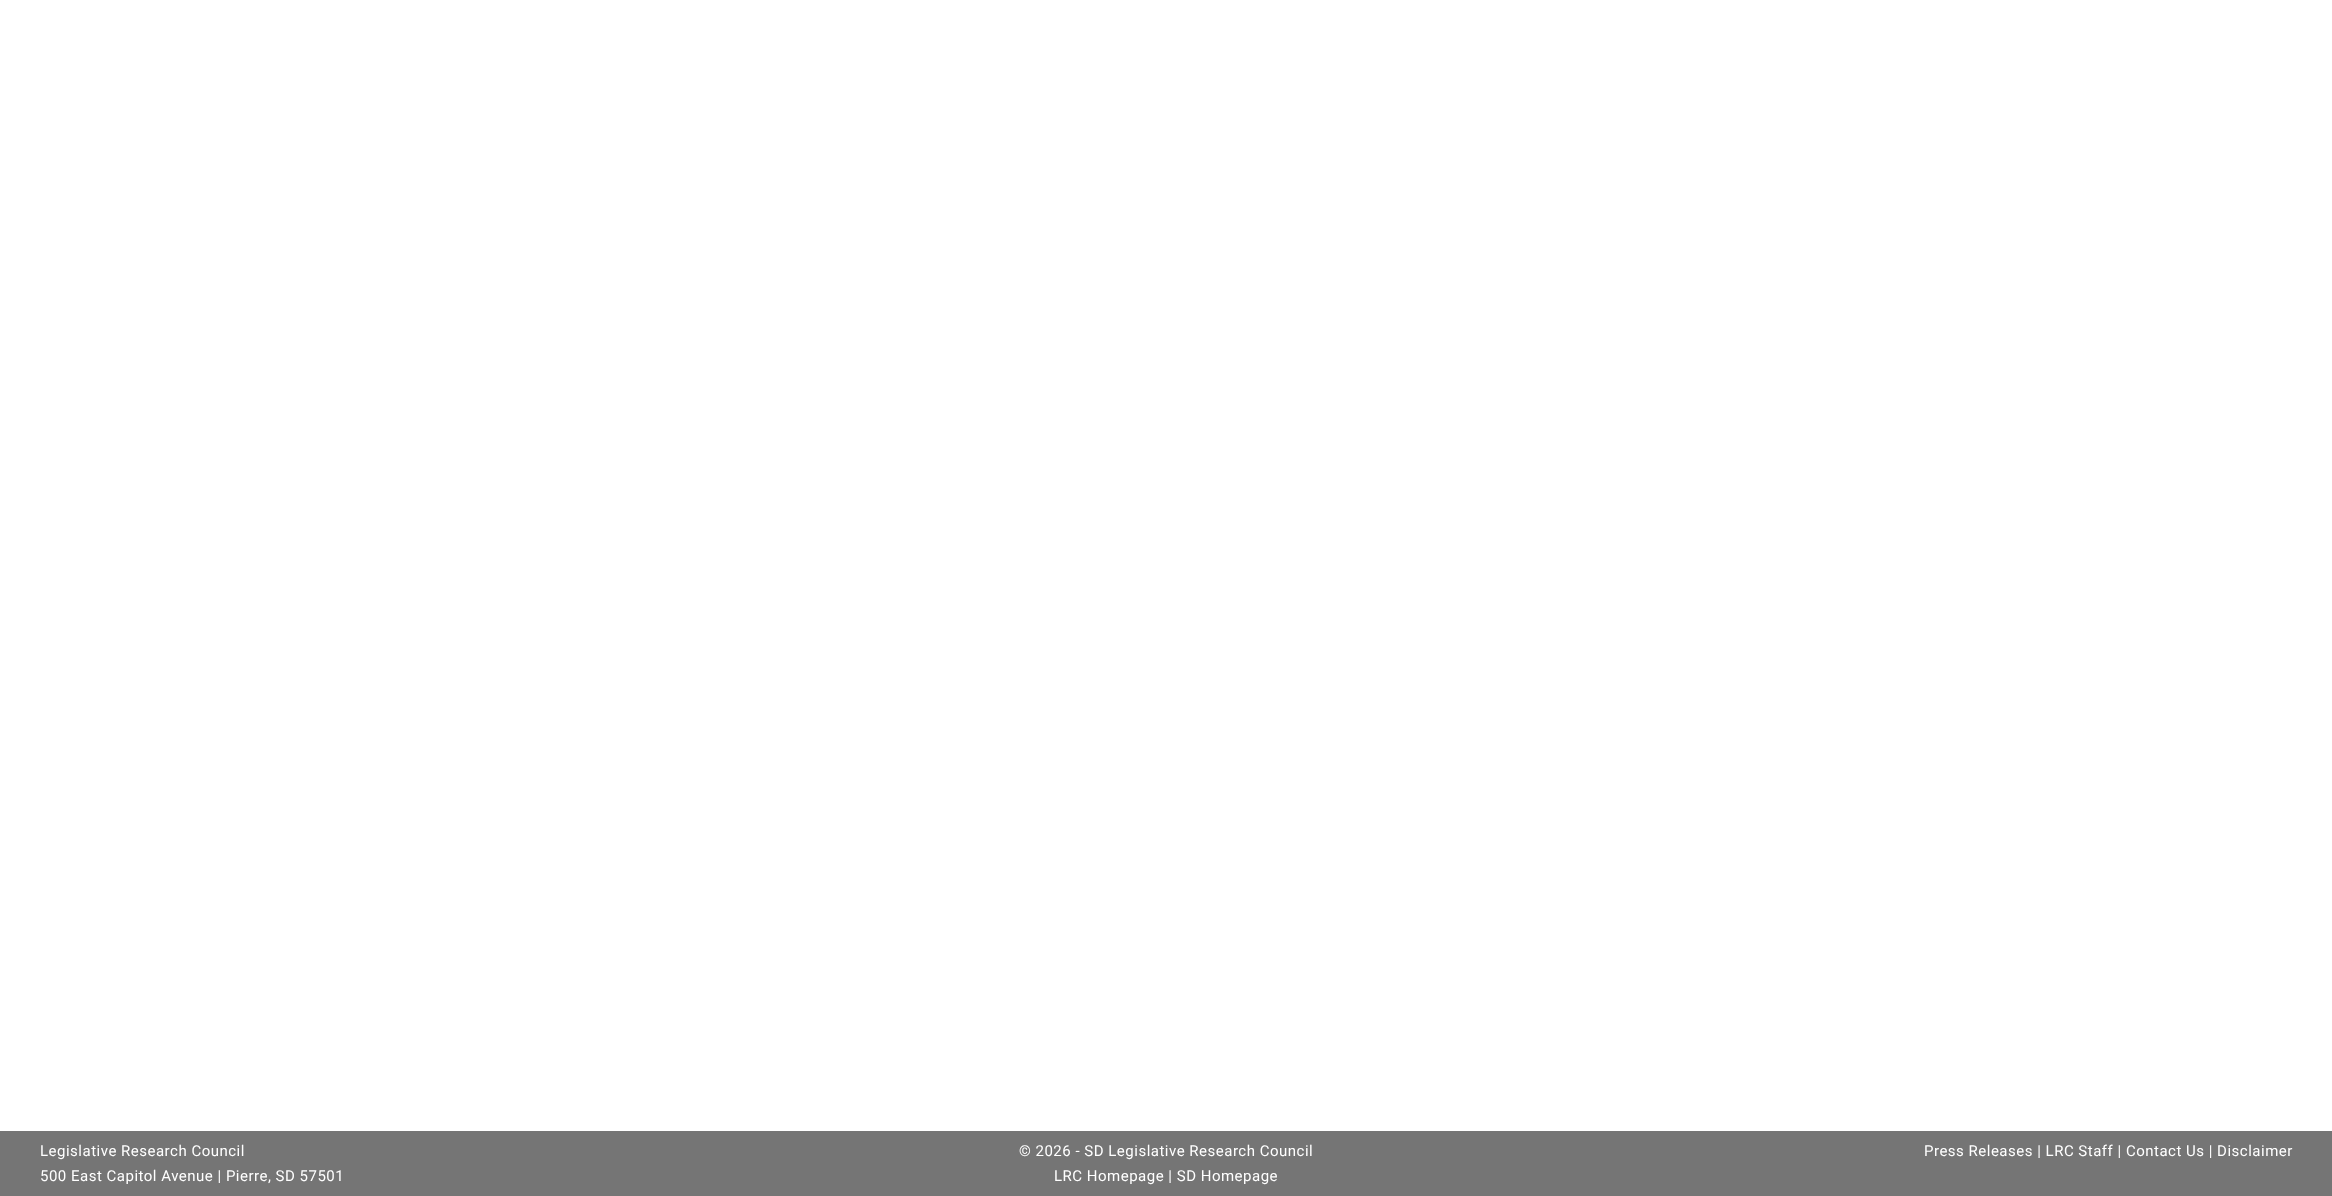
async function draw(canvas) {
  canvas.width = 2332
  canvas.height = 1196
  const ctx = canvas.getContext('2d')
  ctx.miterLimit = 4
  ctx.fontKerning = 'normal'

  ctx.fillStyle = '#fff'
  ctx.fillRect(0, 0, 2332, 1196)
  ctx.fillStyle = '#757575'
  ctx.fillRect(0, 1131, 2332, 65)
  ctx.letterSpacing = '0.5px'
  ctx.font = '15px Roboto'
  ctx.fillStyle = '#fff'
  ctx.fillText('Legislative Research Council', 40, 1156)
  ctx.fillText('500 East Capitol Avenue | Pierre, SD 57501', 40, 1181)
  ctx.fillText('© 2026 - SD Legislative Research Council', 1019, 1156)
  ctx.fillText('LRC Homepage | SD Homepage', 1054, 1181)
  ctx.fillText('Press Releases | LRC Staff | Contact Us | Disclaimer', 1924, 1156)
}

draw(document.querySelector('canvas'))
